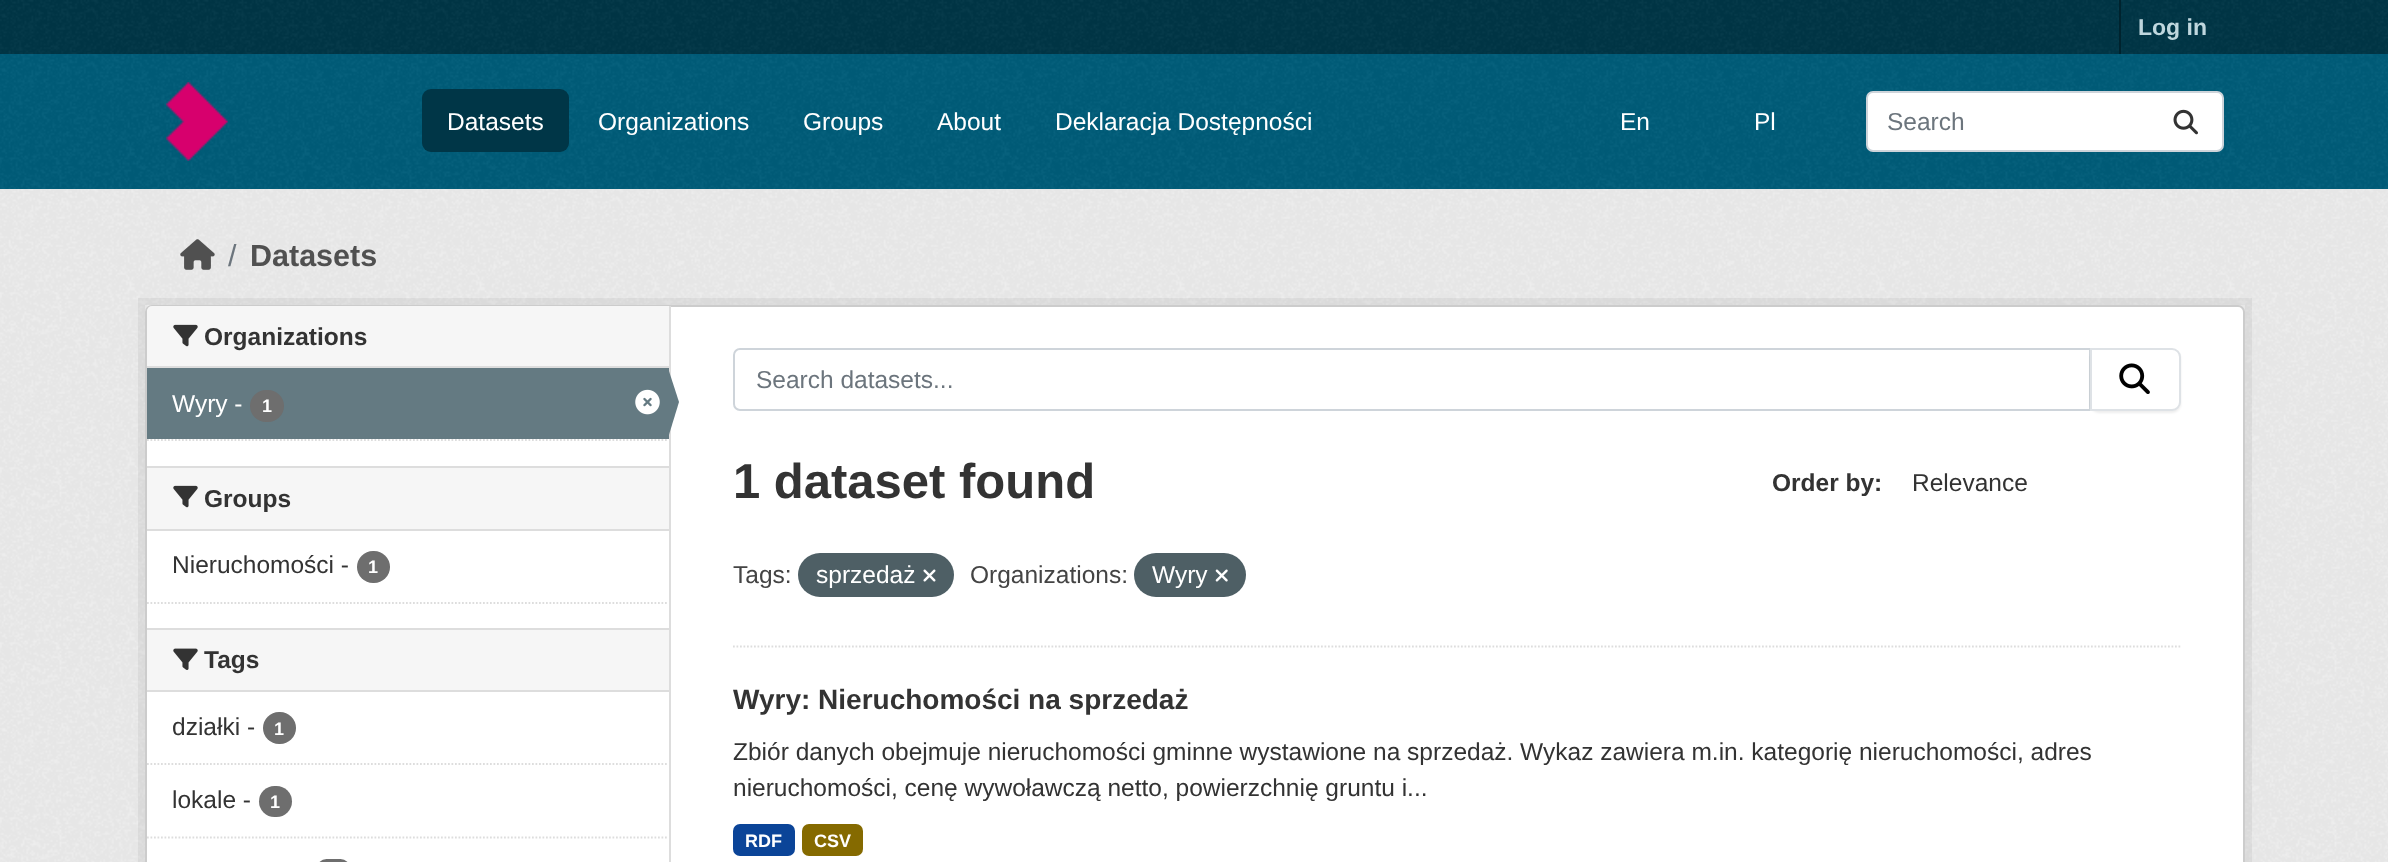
async function draw(canvas) {
  canvas.width = 2388
  canvas.height = 862
  const ctx = canvas.getContext('2d')
  ctx.miterLimit = 4
  ctx.fontKerning = 'normal'
  async function loadImage(src) {
    const img = new Image()
    img.src = src
    await img.decode()
    return img
  }

  ctx.fillStyle = '#003647'
  ctx.fillRect(0, 0, 2388, 862)
  ctx.drawImage(await loadImage('image0.png'), 0, 0, 2388, 54)
  ctx.fillStyle = '#00232e'
  ctx.fillRect(2119, 0, 2, 54)
  ctx.font = 'bold 23px Liberation Sans'
  ctx.fillStyle = '#bfd7de'
  ctx.fillText('Log in', 2138, 35)
  ctx.fillStyle = '#005d7a'
  ctx.fillRect(0, 54, 2388, 135)
  ctx.drawImage(await loadImage('image1.png'), 0, 54, 2388, 135)
  ctx.drawImage(await loadImage('image2.png'), 166, 82, 62, 79)
  ctx.fillStyle = '#003647'
  ctx.beginPath()
  ctx.roundRect(422, 89, 147, 63, 9)
  ctx.fill()
  ctx.font = '24.5px Liberation Sans'
  ctx.fillStyle = '#fff'
  ctx.fillText('Datasets', 447, 130)
  ctx.fillText('Organizations', 598, 130)
  ctx.fillText('Groups', 803, 130)
  ctx.fillText('About', 937, 130)
  ctx.fillText('Deklaracja Dostępności', 1055, 130)
  ctx.fillText('En', 1620, 130)
  ctx.fillText('Pl', 1754, 130)
  ctx.beginPath()
  ctx.roundRect(1867, 92, 356, 59, 6)
  ctx.fill()
  ctx.strokeStyle = '#ced4da'
  ctx.lineWidth = 2
  ctx.stroke()
  ctx.fillStyle = '#6c757d'
  ctx.fillText('Search', 1887, 130)
  ctx.drawImage(await loadImage('image3.png'), 2173, 109, 25, 26)
  ctx.fillStyle = '#eee'
  ctx.fillRect(0, 189, 2388, 673)
  ctx.drawImage(await loadImage('image4.png'), 0, 189, 2388, 673)
  ctx.drawImage(await loadImage('image5.png'), 180, 239, 35, 31)
  ctx.font = '30.5px Liberation Sans'
  ctx.fillStyle = '#6c757d'
  ctx.fillText('/', 228, 266)
  ctx.font = 'bold 30.5px Liberation Sans'
  ctx.fillStyle = '#505050'
  ctx.fillText('Datasets', 250, 266)
  ctx.strokeStyle = '#0000000d'
  ctx.lineWidth = 7
  ctx.strokeRect(141.5, 301.5, 2107, 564)
  ctx.fillStyle = '#fff'
  ctx.beginPath()
  ctx.roundRect(146, 306, 2098, 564, 6)
  ctx.fill()
  ctx.strokeStyle = '#ccc'
  ctx.lineWidth = 2
  ctx.stroke()
  ctx.fillStyle = '#f6f6f6'
  ctx.beginPath()
  ctx.roundRect(147, 306, 522, 62, [5, 0, 0, 0])
  ctx.fill()
  ctx.fillStyle = '#ddd'
  ctx.fillRect(147, 366, 522, 2)
  ctx.drawImage(await loadImage('image6.png'), 173, 324, 25, 23)
  ctx.font = 'bold 24.5px Liberation Sans'
  ctx.fillStyle = '#333'
  ctx.fillText('Organizations', 204, 345)
  ctx.fillStyle = '#647a82'
  ctx.fillRect(147, 368, 522, 71)
  ctx.font = '24.5px Liberation Sans'
  ctx.fillStyle = '#fff'
  ctx.fillText('Wyry -', 172, 412)
  ctx.fillStyle = '#6e6e6e'
  ctx.beginPath()
  ctx.roundRect(250, 390, 34, 32, 16)
  ctx.fill()
  ctx.font = 'bold 18px Liberation Sans'
  ctx.fillStyle = '#fff'
  ctx.fillText('1', 262, 412)
  ctx.drawImage(await loadImage('image7.png'), 635, 389, 25, 26)
  ctx.fillStyle = '#ddd'
  ctx.fillRect(669, 306, 2, 556)
  ctx.fillStyle = '#647a82'
  ctx.beginPath()
  ctx.moveTo(668, 438)
  ctx.lineTo(668, 368)
  ctx.lineTo(679, 402)
  ctx.closePath()
  ctx.fill()
  ctx.beginPath()
  ctx.moveTo(147, 440)
  ctx.lineTo(668.5, 440)
  ctx.strokeStyle = '#ddd'
  ctx.lineWidth = 1.8
  ctx.setLineDash([1.75, 1.75])
  ctx.stroke()
  ctx.fillStyle = '#f6f6f6'
  ctx.fillRect(147, 468, 522, 61)
  ctx.fillStyle = '#ddd'
  ctx.fillRect(147, 466, 522, 2)
  ctx.fillRect(147, 529, 522, 2)
  ctx.drawImage(await loadImage('image6.png'), 173, 485, 25, 23)
  ctx.font = 'bold 24.5px Liberation Sans'
  ctx.fillStyle = '#333'
  ctx.fillText('Groups', 204, 507)
  ctx.font = '24.5px Liberation Sans'
  ctx.fillText('Nieruchomości -', 172, 573)
  ctx.fillStyle = '#6e6e6e'
  ctx.beginPath()
  ctx.roundRect(357, 551, 33, 32, 16)
  ctx.fill()
  ctx.font = 'bold 18px Liberation Sans'
  ctx.fillStyle = '#fff'
  ctx.fillText('1', 368, 573)
  ctx.beginPath()
  ctx.moveTo(147, 603)
  ctx.lineTo(668.5, 603)
  ctx.stroke()
  ctx.fillStyle = '#f6f6f6'
  ctx.fillRect(147, 630, 522, 60)
  ctx.fillStyle = '#ddd'
  ctx.fillRect(147, 628, 522, 2)
  ctx.fillRect(147, 690, 522, 2)
  ctx.drawImage(await loadImage('image8.png'), 173, 648, 25, 22)
  ctx.font = 'bold 24.5px Liberation Sans'
  ctx.fillStyle = '#333'
  ctx.fillText('Tags', 204, 668)
  ctx.beginPath()
  ctx.moveTo(147, 764)
  ctx.lineTo(668.5, 764)
  ctx.stroke()
  ctx.font = '24.5px Liberation Sans'
  ctx.fillText('działki -', 172, 735)
  ctx.fillStyle = '#6e6e6e'
  ctx.beginPath()
  ctx.roundRect(263, 712, 33, 32, 16)
  ctx.fill()
  ctx.font = 'bold 18px Liberation Sans'
  ctx.fillStyle = '#fff'
  ctx.fillText('1', 274, 735)
  ctx.beginPath()
  ctx.moveTo(147, 837.5)
  ctx.lineTo(668.5, 837.5)
  ctx.stroke()
  ctx.font = '24.5px Liberation Sans'
  ctx.fillStyle = '#333'
  ctx.fillText('lokale -', 172, 808)
  ctx.fillStyle = '#6e6e6e'
  ctx.beginPath()
  ctx.roundRect(259, 786, 33, 31, 15.5)
  ctx.fill()
  ctx.font = 'bold 18px Liberation Sans'
  ctx.fillStyle = '#fff'
  ctx.fillText('1', 270, 808)
  ctx.fillStyle = '#6e6e6e'
  ctx.beginPath()
  ctx.roundRect(317, 859, 33, 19, 16)
  ctx.fill()
  ctx.beginPath()
  ctx.moveTo(733, 646.5)
  ctx.lineTo(2180.5, 646.5)
  ctx.stroke()
  ctx.beginPath()
  ctx.roundRect(734, 349, 1356, 61, [6, 0, 0, 6])
  ctx.strokeStyle = '#ced4da'
  ctx.lineWidth = 2
  ctx.setLineDash([])
  ctx.stroke()
  ctx.font = '24.5px Liberation Sans'
  ctx.fillStyle = '#6c757d'
  ctx.fillText('Search datasets...', 756, 388)
  ctx.fillStyle = '#00000012'
  ctx.filter = 'blur(1px)'
  ctx.beginPath()
  ctx.roundRect(2090, 350, 91, 63, 9)
  ctx.fill()
  ctx.filter = 'none'
  ctx.fillStyle = '#fff'
  ctx.beginPath()
  ctx.roundRect(2091, 349, 89, 61, [0, 8, 8, 0])
  ctx.fill()
  ctx.strokeStyle = '#dee2e6'
  ctx.stroke()
  ctx.drawImage(await loadImage('image9.png'), 2119, 363, 31, 31)
  ctx.font = 'bold 49px Liberation Sans'
  ctx.fillStyle = '#333'
  ctx.fillText('1 dataset found', 733, 498)
  ctx.font = 'bold 24.5px Liberation Sans'
  ctx.fillText('Order by:', 1772, 491)
  ctx.font = '24.5px Liberation Sans'
  ctx.fillText('Relevance', 1912, 491)
  ctx.fillStyle = '#444'
  ctx.fillText('Tags:', 733, 583)
  ctx.fillStyle = '#4e5f65'
  ctx.beginPath()
  ctx.roundRect(798, 553, 156, 44, 22)
  ctx.fill()
  ctx.fillStyle = '#fff'
  ctx.fillText('sprzedaż', 816, 583)
  ctx.drawImage(await loadImage('image10.png'), 923, 569, 13, 13)
  ctx.fillStyle = '#444'
  ctx.fillText('Organizations:', 970, 583)
  ctx.fillStyle = '#4e5f65'
  ctx.beginPath()
  ctx.roundRect(1134, 553, 112, 44, 22)
  ctx.fill()
  ctx.fillStyle = '#fff'
  ctx.fillText('Wyry', 1152, 583)
  ctx.drawImage(await loadImage('image11.png'), 1215, 569, 13, 13)
  ctx.font = 'bold 28px Liberation Sans'
  ctx.fillStyle = '#333'
  ctx.fillText('Wyry: Nieruchomości na sprzedaż', 733, 709)
  ctx.font = '24.5px Liberation Sans'
  ctx.fillText('Zbiór danych obejmuje nieruchomości gminne wystawione na sprzedaż. Wykaz zawiera m.in. kategorię nieruchomości, adres', 733, 760)
  ctx.fillText('nieruchomości, cenę wywoławczą netto, powierzchnię gruntu i...', 733, 796)
  ctx.fillStyle = '#0b4498'
  ctx.beginPath()
  ctx.roundRect(733, 824, 62, 32, 7)
  ctx.fill()
  ctx.font = 'bold 18px Liberation Sans'
  ctx.fillStyle = '#fff'
  ctx.fillText('RDF', 745, 847)
  ctx.fillStyle = '#856a00'
  ctx.beginPath()
  ctx.roundRect(802, 824, 61, 32, 7)
  ctx.fill()
  ctx.fillStyle = '#fff'
  ctx.fillText('CSV', 814, 847)
}

draw(document.querySelector('canvas'))
